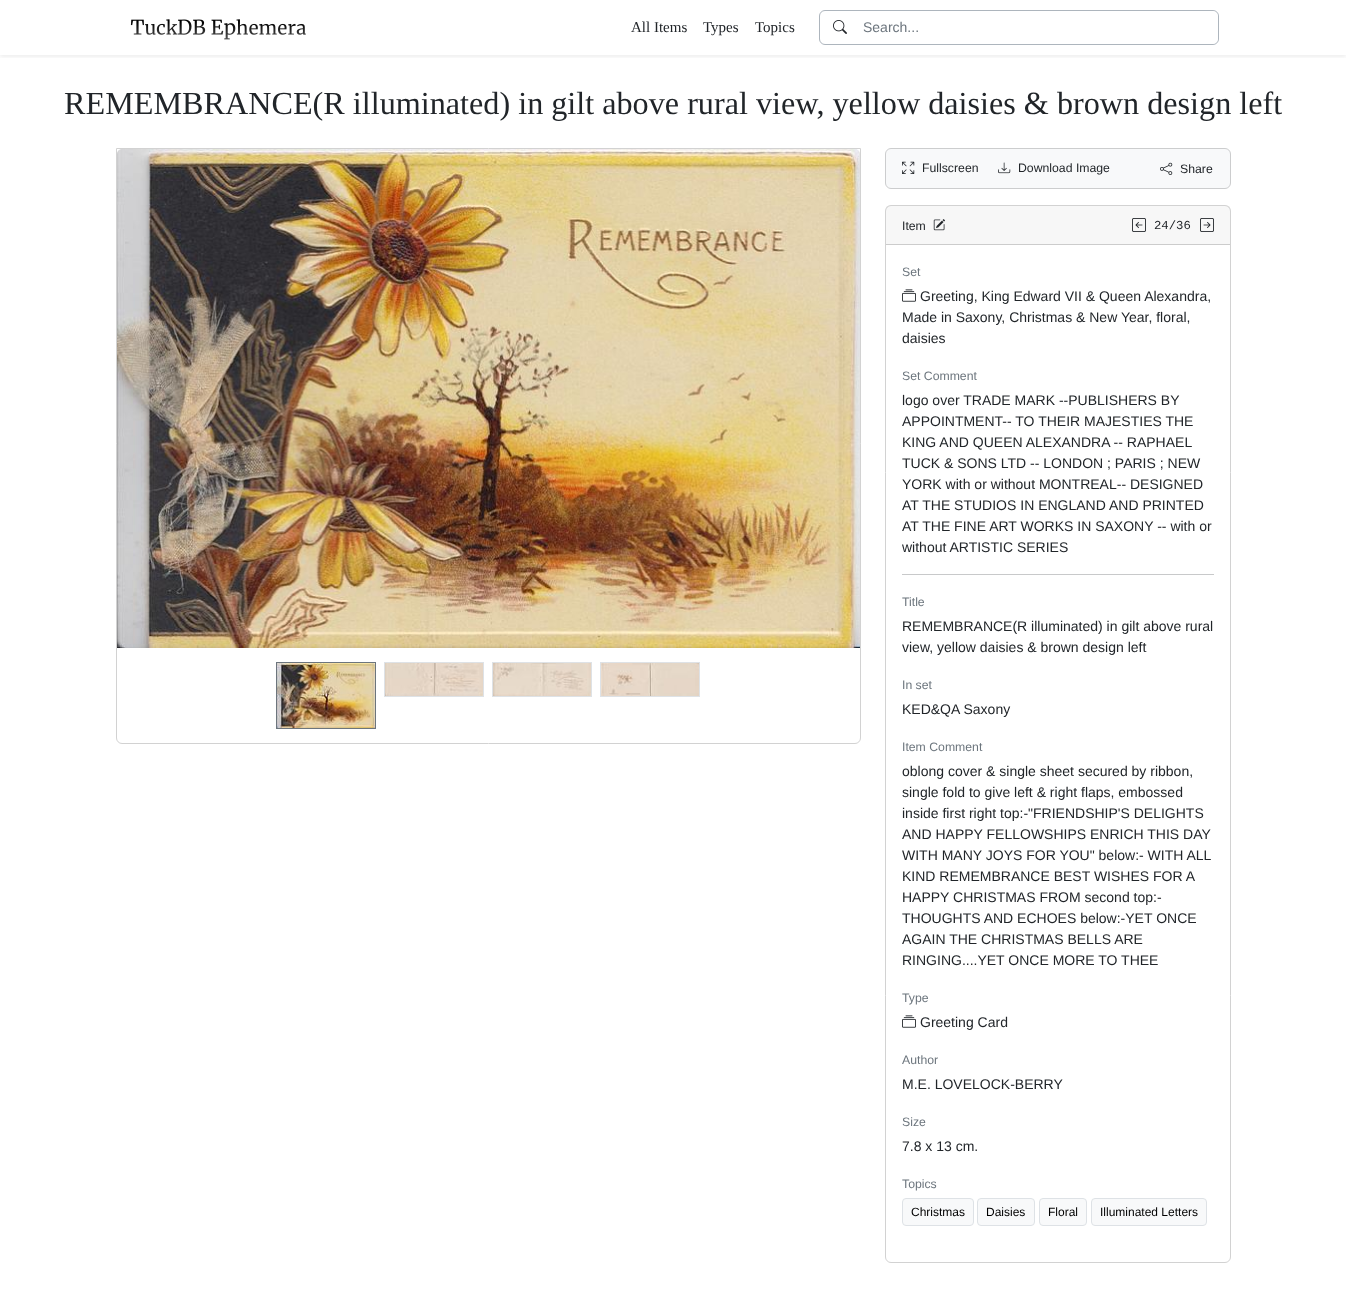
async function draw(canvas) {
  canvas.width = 1346
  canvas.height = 1311
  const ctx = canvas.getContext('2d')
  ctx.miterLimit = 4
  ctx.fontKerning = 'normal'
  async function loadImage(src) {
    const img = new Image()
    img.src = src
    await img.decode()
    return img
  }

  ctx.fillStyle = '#fff'
  ctx.fillRect(0, 0, 1346, 1311)
  ctx.save()
  ctx.beginPath()
  ctx.rect(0, 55, 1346, 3)
  ctx.clip()
  ctx.fillStyle = '#00000012'
  ctx.filter = 'blur(2px)'
  ctx.beginPath()
  ctx.rect(0, 2, 1346, 55)
  ctx.fill()
  ctx.filter = 'none'
  ctx.restore()
  ctx.drawImage(await loadImage('image0.png'), 130, 19, 176, 21)
  ctx.font = '15px Liberation Serif'
  ctx.fillStyle = '#212529'
  ctx.fillText('All Items', 631, 32)
  ctx.fillText('Types', 703, 32)
  ctx.fillText('Topics', 755, 32)
  ctx.beginPath()
  ctx.roundRect(819.5, 10.5, 399, 34, 5.5)
  ctx.strokeStyle = '#adb5bd'
  ctx.stroke()
  ctx.drawImage(await loadImage('image1.png'), 833, 20, 14, 14)
  ctx.font = '14px Liberation Sans'
  ctx.fillStyle = '#6c757d'
  ctx.fillText('Search...', 863, 32)
  ctx.fillStyle = '#fff'
  ctx.beginPath()
  ctx.roundRect(1192, 11, 26, 33, [0, 6, 6, 0])
  ctx.fill()
  ctx.font = '32.2px Liberation Serif'
  ctx.fillStyle = '#212529'
  ctx.fillText('REMEMBRANCE(R illuminated) in gilt above rural view, yellow daisies & brown design left', 64, 114)
  ctx.beginPath()
  ctx.roundRect(116.5, 148.5, 744, 595, [0, 0, 5.5, 5.5])
  ctx.strokeStyle = '#d2d2d2'
  ctx.stroke()
  ctx.drawImage(await loadImage('image2.png'), 117, 149, 743, 499)
  ctx.strokeStyle = '#6c757d'
  ctx.strokeRect(276.5, 662.5, 99, 66)
  ctx.drawImage(await loadImage('image3.png'), 277, 663, 98, 65)
  ctx.strokeStyle = '#dee2e6'
  ctx.strokeRect(384.5, 662.5, 99, 34)
  ctx.drawImage(await loadImage('image4.png'), 385, 663, 98, 33)
  ctx.strokeRect(492.5, 662.5, 99, 34)
  ctx.drawImage(await loadImage('image5.png'), 493, 663, 98, 33)
  ctx.strokeRect(600.5, 662.5, 99, 34)
  ctx.drawImage(await loadImage('image6.png'), 601, 663, 98, 33)
  ctx.fillStyle = '#f8f9fa'
  ctx.beginPath()
  ctx.roundRect(885.5, 148.5, 345, 40, 5.5)
  ctx.fill()
  ctx.strokeStyle = '#cccdce'
  ctx.stroke()
  ctx.drawImage(await loadImage('image7.png'), 902, 161, 13, 13)
  ctx.font = '12.25px Liberation Sans'
  ctx.fillStyle = '#212529'
  ctx.fillText('Fullscreen', 922, 172)
  ctx.drawImage(await loadImage('image8.png'), 998, 162, 13, 12)
  ctx.fillText('Download Image', 1018, 172)
  ctx.drawImage(await loadImage('image9.png'), 1160, 162, 13, 13)
  ctx.fillText('Share', 1180, 173)
  ctx.beginPath()
  ctx.roundRect(885.5, 205.5, 345, 1057, 5.5)
  ctx.strokeStyle = '#d2d2d2'
  ctx.stroke()
  ctx.fillStyle = '#00000008'
  ctx.fillRect(886, 206, 344, 38)
  ctx.fillStyle = '#ccc'
  ctx.fillRect(886, 244, 344, 1)
  ctx.fillStyle = '#212529'
  ctx.fillText('Item', 902, 230)
  ctx.drawImage(await loadImage('image10.png'), 933, 219, 12, 12)
  ctx.drawImage(await loadImage('image11.png'), 1132, 218, 14, 14)
  ctx.font = '12.25px Liberation Mono'
  ctx.fillText('24/36', 1154, 229)
  ctx.drawImage(await loadImage('image12.png'), 1200, 218, 14, 14)
  ctx.font = '12.25px Liberation Sans'
  ctx.fillStyle = '#6c757d'
  ctx.fillText('Set', 902, 276)
  ctx.drawImage(await loadImage('image13.png'), 902, 289, 14, 13)
  ctx.font = '14px Liberation Sans'
  ctx.fillStyle = '#212529'
  ctx.fillText('Greeting, King Edward VII & Queen Alexandra,', 920, 301)
  ctx.fillText('Made in Saxony, Christmas & New Year, floral,', 902, 322)
  ctx.fillText('daisies', 902, 343)
  ctx.font = '12.25px Liberation Sans'
  ctx.fillStyle = '#6c757d'
  ctx.fillText('Set Comment', 902, 380)
  ctx.font = '14px Liberation Sans'
  ctx.fillStyle = '#212529'
  ctx.fillText('logo over TRADE MARK --PUBLISHERS BY', 902, 405)
  ctx.fillText('APPOINTMENT-- TO THEIR MAJESTIES THE', 902, 426)
  ctx.fillText('KING AND QUEEN ALEXANDRA -- RAPHAEL', 902, 447)
  ctx.fillText('TUCK & SONS LTD -- LONDON ; PARIS ; NEW', 902, 468)
  ctx.fillText('YORK with or without MONTREAL-- DESIGNED', 902, 489)
  ctx.fillText('AT THE STUDIOS IN ENGLAND AND PRINTED', 902, 510)
  ctx.fillText('AT THE FINE ART WORKS IN SAXONY -- with or', 902, 531)
  ctx.fillText('without ARTISTIC SERIES', 902, 552)
  ctx.fillStyle = '#c8c9ca'
  ctx.fillRect(902, 574, 312, 1)
  ctx.font = '12.25px Liberation Sans'
  ctx.fillStyle = '#6c757d'
  ctx.fillText('Title', 902, 606)
  ctx.font = '14px Liberation Sans'
  ctx.fillStyle = '#212529'
  ctx.fillText('REMEMBRANCE(R illuminated) in gilt above rural', 902, 631)
  ctx.fillText('view, yellow daisies & brown design left', 902, 652)
  ctx.font = '12.25px Liberation Sans'
  ctx.fillStyle = '#6c757d'
  ctx.fillText('In set', 902, 689)
  ctx.font = '14px Liberation Sans'
  ctx.fillStyle = '#212529'
  ctx.fillText('KED&QA Saxony', 902, 714)
  ctx.font = '12.25px Liberation Sans'
  ctx.fillStyle = '#6c757d'
  ctx.fillText('Item Comment', 902, 751)
  ctx.font = '14px Liberation Sans'
  ctx.fillStyle = '#212529'
  ctx.fillText('oblong cover & single sheet secured by ribbon,', 902, 776)
  ctx.fillText('single fold to give left & right flaps, embossed', 902, 797)
  ctx.fillText('inside first right top:-"FRIENDSHIP\'S DELIGHTS', 902, 818)
  ctx.fillText('AND HAPPY FELLOWSHIPS ENRICH THIS DAY', 902, 839)
  ctx.fillText('WITH MANY JOYS FOR YOU" below:- WITH ALL', 902, 860)
  ctx.fillText('KIND REMEMBRANCE BEST WISHES FOR A', 902, 881)
  ctx.fillText('HAPPY CHRISTMAS FROM second top:-', 902, 902)
  ctx.fillText('THOUGHTS AND ECHOES below:-YET ONCE', 902, 923)
  ctx.fillText('AGAIN THE CHRISTMAS BELLS ARE', 902, 944)
  ctx.fillText('RINGING....YET ONCE MORE TO THEE', 902, 965)
  ctx.font = '12.25px Liberation Sans'
  ctx.fillStyle = '#6c757d'
  ctx.fillText('Type', 902, 1002)
  ctx.drawImage(await loadImage('image13.png'), 902, 1015, 14, 13)
  ctx.font = '14px Liberation Sans'
  ctx.fillStyle = '#212529'
  ctx.fillText('Greeting Card', 920, 1027)
  ctx.font = '12.25px Liberation Sans'
  ctx.fillStyle = '#6c757d'
  ctx.fillText('Author', 902, 1064)
  ctx.font = '14px Liberation Sans'
  ctx.fillStyle = '#212529'
  ctx.fillText('M.E. LOVELOCK-BERRY', 902, 1089)
  ctx.font = '12.25px Liberation Sans'
  ctx.fillStyle = '#6c757d'
  ctx.fillText('Size', 902, 1126)
  ctx.font = '14px Liberation Sans'
  ctx.fillStyle = '#212529'
  ctx.fillText('7.8 x 13 cm.', 902, 1151)
  ctx.font = '12.25px Liberation Sans'
  ctx.fillStyle = '#6c757d'
  ctx.fillText('Topics', 902, 1188)
  ctx.fillStyle = '#f8f9fa'
  ctx.beginPath()
  ctx.roundRect(902.5, 1198.5, 71, 27, 3.5)
  ctx.fill()
  ctx.strokeStyle = '#dee2e6'
  ctx.stroke()
  ctx.font = '12px Liberation Sans'
  ctx.fillStyle = '#000'
  ctx.fillText('Christmas', 911, 1216)
  ctx.fillStyle = '#f8f9fa'
  ctx.beginPath()
  ctx.roundRect(977.5, 1198.5, 57, 27, 3.5)
  ctx.fill()
  ctx.stroke()
  ctx.fillStyle = '#000'
  ctx.fillText('Daisies', 986, 1216)
  ctx.fillStyle = '#f8f9fa'
  ctx.beginPath()
  ctx.roundRect(1039.5, 1198.5, 47, 27, 3.5)
  ctx.fill()
  ctx.stroke()
  ctx.fillStyle = '#000'
  ctx.fillText('Floral', 1048, 1216)
  ctx.fillStyle = '#f8f9fa'
  ctx.beginPath()
  ctx.roundRect(1091.5, 1198.5, 115, 27, 3.5)
  ctx.fill()
  ctx.stroke()
  ctx.fillStyle = '#000'
  ctx.fillText('Illuminated Letters', 1100, 1216)
}

draw(document.querySelector('canvas'))
